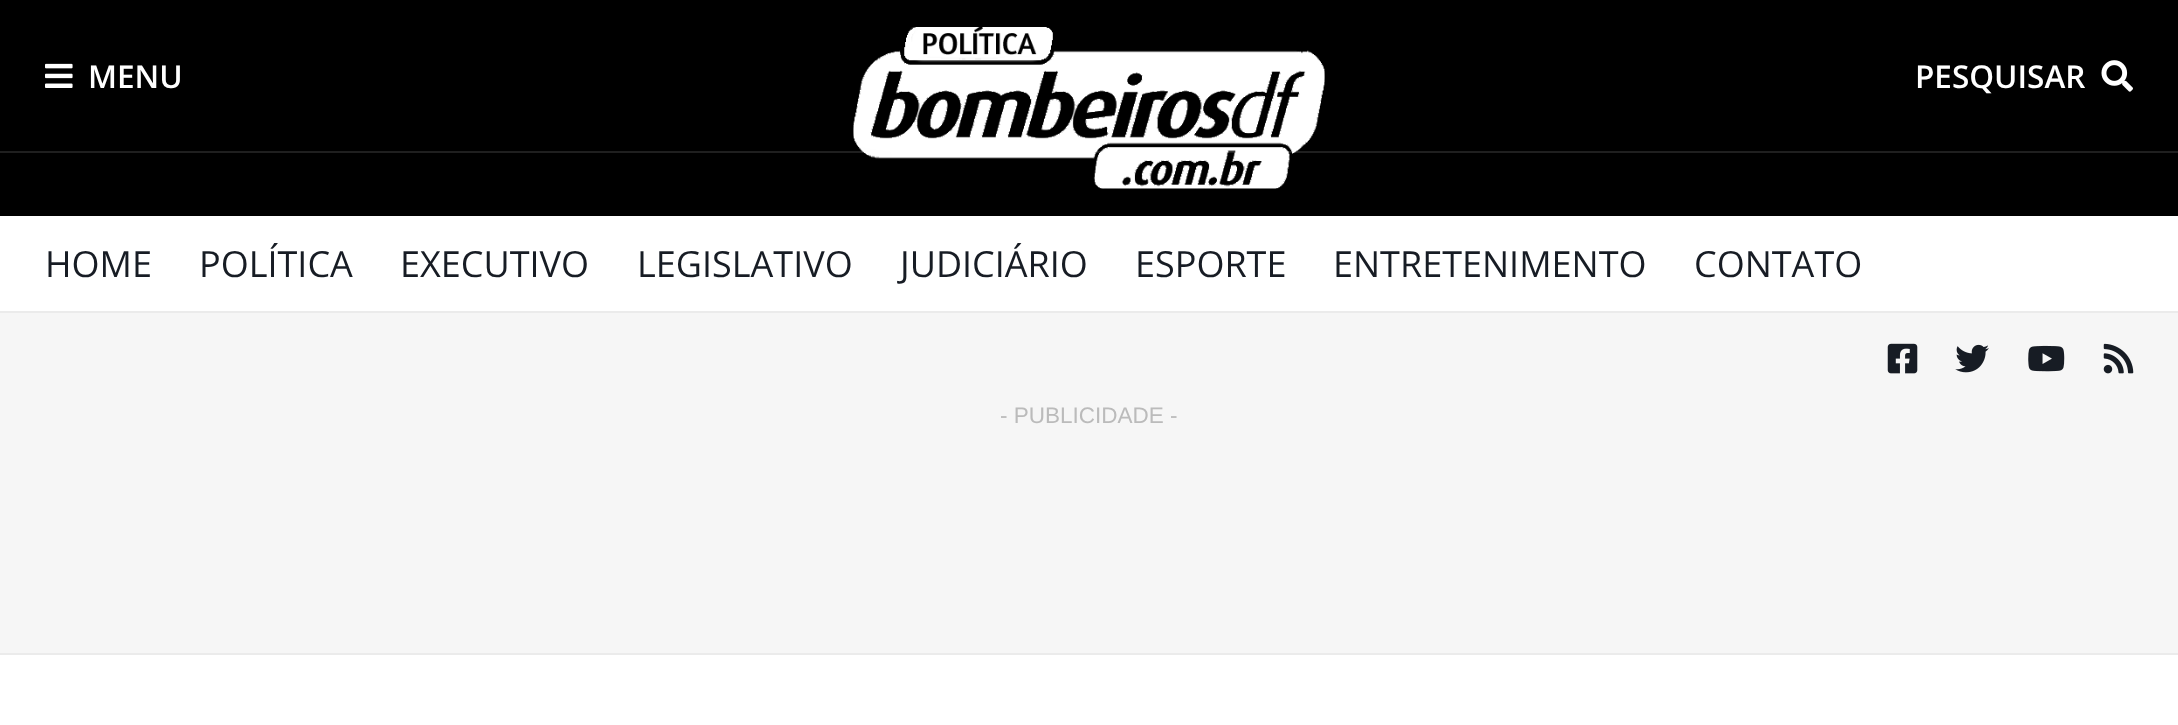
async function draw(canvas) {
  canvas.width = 2178
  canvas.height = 725
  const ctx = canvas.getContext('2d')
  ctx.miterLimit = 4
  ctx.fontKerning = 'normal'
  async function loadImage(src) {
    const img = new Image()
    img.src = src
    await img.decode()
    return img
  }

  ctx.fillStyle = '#f6f6f6'
  ctx.fillRect(0, 0, 2178, 725)
  ctx.fillStyle = '#000'
  ctx.fillRect(0, 0, 2178, 216)
  ctx.fillStyle = '#1f1f1f'
  ctx.fillRect(0, 151, 2178, 2)
  ctx.drawImage(await loadImage('image0.png'), 45, 63, 28, 25)
  ctx.font = '600 31.5px Open Sans'
  ctx.fillStyle = '#fff'
  ctx.fillText('MENU', 88, 88)
  ctx.drawImage(await loadImage('image1.png'), 853, 27, 472, 162)
  ctx.fillText('PESQUISAR', 1915, 88)
  ctx.drawImage(await loadImage('image2.png'), 2101, 60, 32, 32)
  ctx.fillRect(0, 216, 2178, 95)
  ctx.fillStyle = '#ebebeb'
  ctx.fillRect(0, 311, 2178, 2)
  ctx.font = '36px Open Sans'
  ctx.fillStyle = '#171c24'
  ctx.fillText('HOME', 45, 277)
  ctx.fillText('POLÍTICA', 199, 277)
  ctx.fillText('EXECUTIVO', 400, 277)
  ctx.fillText('LEGISLATIVO', 637, 277)
  ctx.fillText('JUDICIÁRIO', 900, 277)
  ctx.fillText('ESPORTE', 1135, 277)
  ctx.fillText('ENTRETENIMENTO', 1333, 277)
  ctx.fillText('CONTATO', 1694, 277)
  ctx.drawImage(await loadImage('image3.png'), 1887, 343, 31, 31)
  ctx.drawImage(await loadImage('image4.png'), 1955, 344, 34, 29)
  ctx.drawImage(await loadImage('image5.png'), 2028, 345, 37, 27)
  ctx.drawImage(await loadImage('image6.png'), 2103, 343, 31, 31)
  ctx.font = '22.5px Liberation Sans'
  ctx.fillStyle = '#bbb'
  ctx.fillText('- PUBLICIDADE -', 1000, 423)
  ctx.fillStyle = '#fff'
  ctx.fillRect(0, 655, 2178, 70)
  ctx.fillStyle = '#ebebeb'
  ctx.fillRect(0, 653, 2178, 2)
}

draw(document.querySelector('canvas'))
